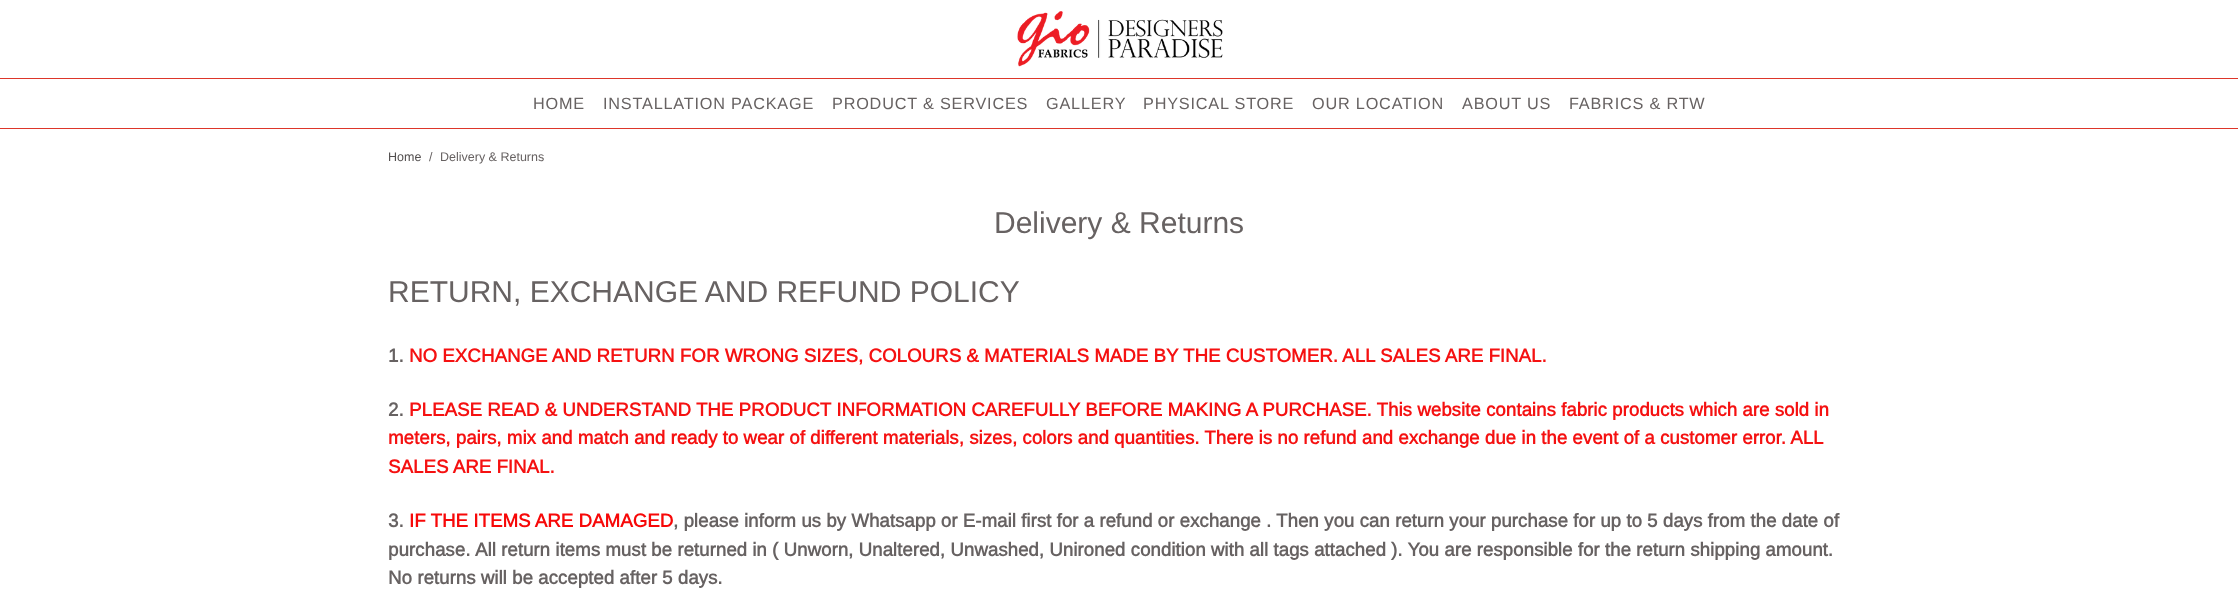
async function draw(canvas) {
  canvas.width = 2238
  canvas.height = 604
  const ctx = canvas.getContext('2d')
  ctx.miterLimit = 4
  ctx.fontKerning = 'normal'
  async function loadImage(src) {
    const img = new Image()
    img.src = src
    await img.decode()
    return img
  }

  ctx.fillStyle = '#fff'
  ctx.fillRect(0, 0, 2238, 604)
  ctx.drawImage(await loadImage('image0.png'), 1017, 11, 206, 56)
  ctx.fillStyle = '#dd362a'
  ctx.fillRect(0, 78, 2238, 1)
  ctx.letterSpacing = '0.8px'
  ctx.font = '16.25px Arimo'
  ctx.fillStyle = '#676262'
  ctx.fillText('HOME', 533, 109)
  ctx.fillText('INSTALLATION PACKAGE', 603, 109)
  ctx.fillText('PRODUCT & SERVICES', 832, 109)
  ctx.fillText('GALLERY', 1046, 109)
  ctx.fillText('PHYSICAL STORE', 1143, 109)
  ctx.fillText('OUR LOCATION', 1312, 109)
  ctx.fillText('ABOUT US', 1462, 109)
  ctx.fillText('FABRICS & RTW', 1569, 109)
  ctx.fillStyle = '#dd362a'
  ctx.fillRect(0, 128, 2238, 1)
  ctx.letterSpacing = '0px'
  ctx.font = '12.5px Arimo'
  ctx.fillStyle = '#534f4f'
  ctx.fillText('Home', 388, 161)
  ctx.fillStyle = '#676262'
  ctx.fillText('/', 429, 161)
  ctx.fillText('Delivery & Returns', 440, 161)
  ctx.font = '30px Arimo'
  ctx.fillText('Delivery & Returns', 994, 233)
  ctx.fillText('RETURN, EXCHANGE AND REFUND POLICY', 388, 302)
  ctx.font = 'bold 18.75px Arimo'
  ctx.fillText('1.', 388, 362)
  ctx.fillStyle = '#f51111'
  ctx.fillText('NO EXCHANGE AND RETURN FOR WRONG SIZES, COLOURS & MATERIALS MADE BY THE CUSTOMER. ALL SALES ARE FINAL.', 409, 362)
  ctx.fillStyle = '#676262'
  ctx.fillText('2.', 388, 416)
  ctx.fillStyle = '#f51111'
  ctx.fillText('PLEASE READ & UNDERSTAND THE PRODUCT INFORMATION CAREFULLY BEFORE MAKING A PURCHASE. This website contains fabric products which are sold in', 409, 416)
  ctx.fillText('meters, pairs, mix and match and ready to wear of different materials, sizes, colors and quantities. There is no refund and exchange due in the event of a customer error. ALL', 388, 444)
  ctx.fillText('SALES ARE FINAL.', 388, 473)
  ctx.fillStyle = '#676262'
  ctx.fillText('3.', 388, 527)
  ctx.fillStyle = '#f70808'
  ctx.fillText('IF THE ITEMS ARE DAMAGED', 409, 527)
  ctx.fillStyle = '#676262'
  ctx.fillText(', please inform us by Whatsapp or E-mail first for a refund or exchange . Then you can return your purchase for up to 5 days from the date of', 673, 527)
  ctx.fillText('purchase.', 388, 556)
  ctx.fillText('All return items must be returned in ( Unworn, Unaltered, Unwashed, Unironed condition with all tags attached ). You are responsible for the return shipping amount.', 475, 556)
  ctx.fillText('No returns will be accepted after 5 days.', 388, 584)
}

draw(document.querySelector('canvas'))
